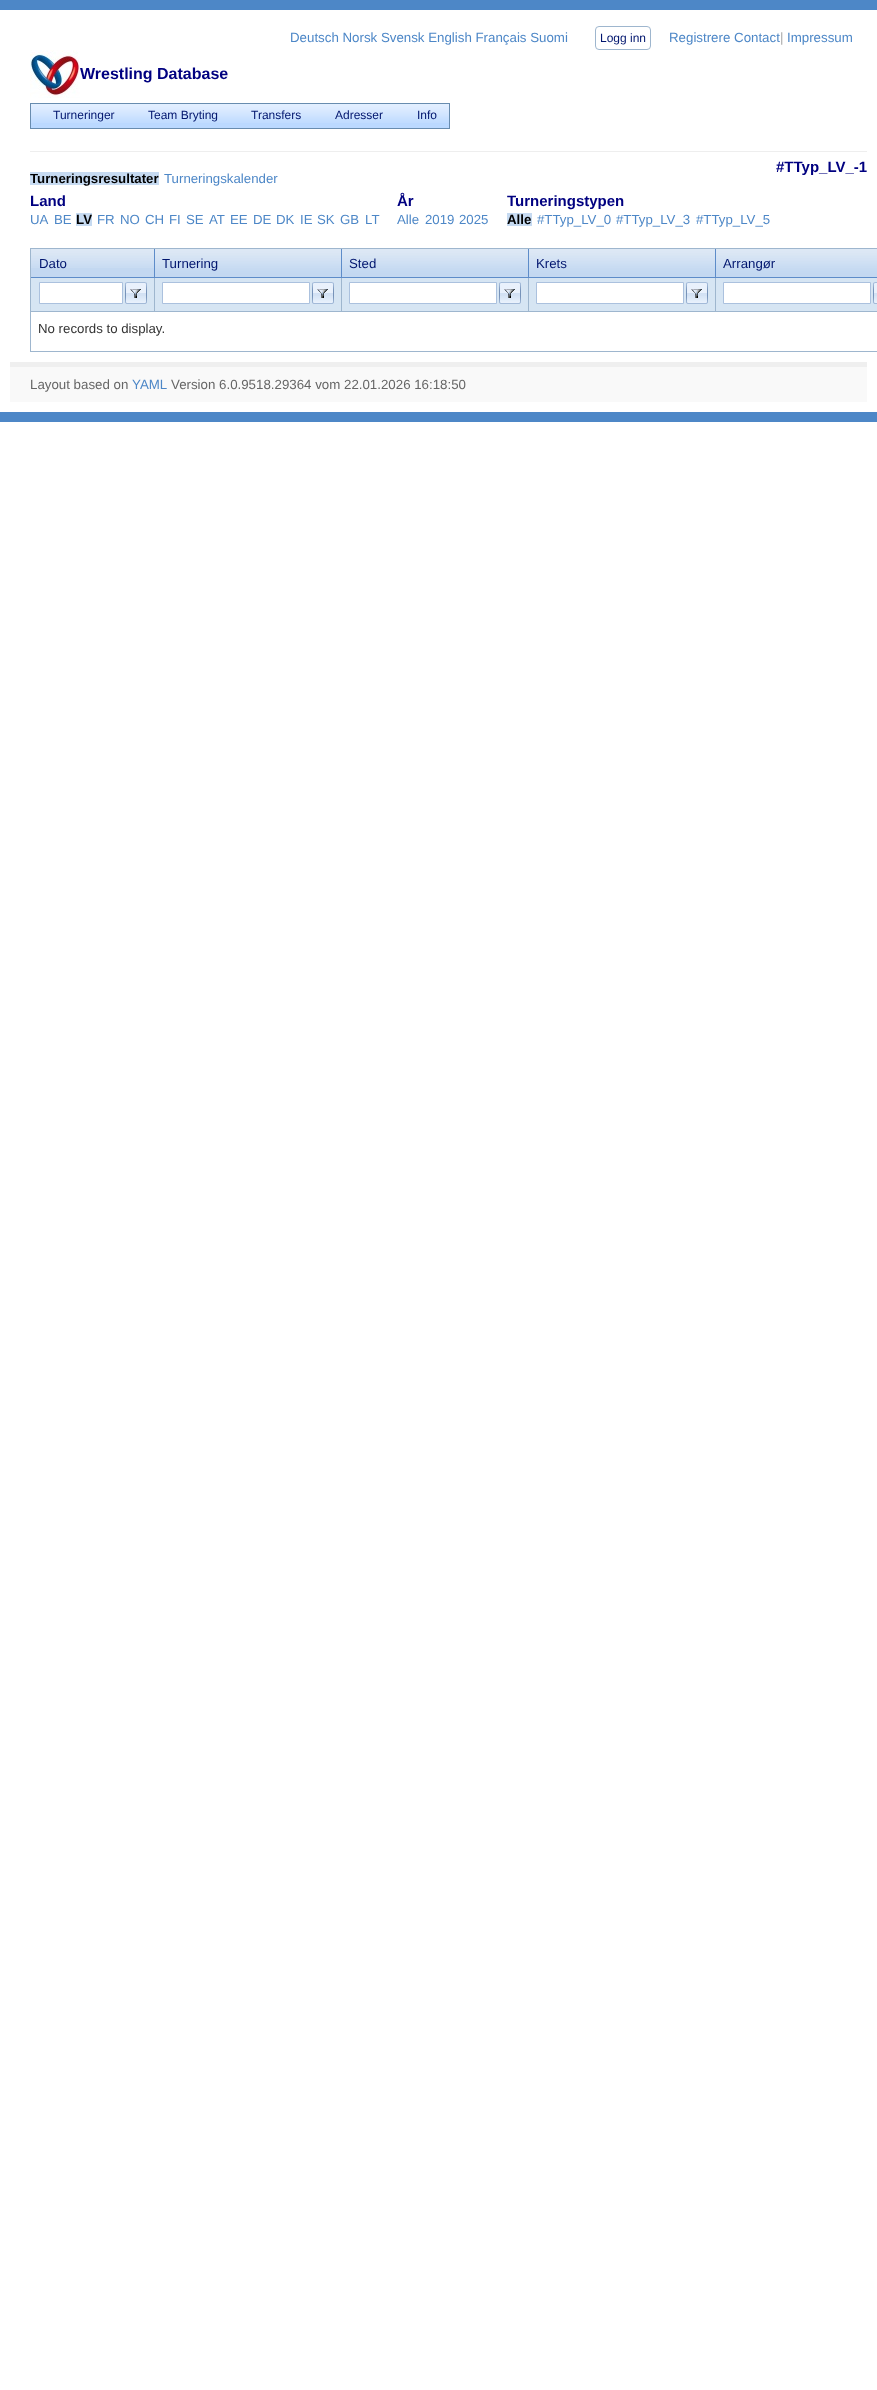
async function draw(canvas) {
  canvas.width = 877
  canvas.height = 2390
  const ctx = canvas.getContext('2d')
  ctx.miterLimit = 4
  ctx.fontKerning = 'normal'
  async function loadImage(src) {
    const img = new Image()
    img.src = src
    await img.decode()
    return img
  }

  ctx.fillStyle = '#fff'
  ctx.fillRect(0, 0, 877, 2390)
  ctx.fillStyle = '#4d87c7'
  ctx.fillRect(0, 0, 877, 422)
  ctx.fillStyle = '#fff'
  ctx.fillRect(0, 10, 877, 402)
  ctx.font = '13.3px Liberation Sans'
  ctx.fillStyle = '#4d87c7'
  ctx.fillText('Deutsch Norsk Svensk English Français Suomi', 290, 42)
  ctx.beginPath()
  ctx.roundRect(595.5, 26.5, 55, 23, 3.5)
  ctx.strokeStyle = '#9eb6ce'
  ctx.stroke()
  ctx.font = '12px Liberation Sans'
  ctx.fillStyle = '#00156e'
  ctx.fillText('Logg inn', 600, 42)
  ctx.font = '13.3px Liberation Sans'
  ctx.fillStyle = '#4d87c7'
  ctx.fillText('Registrere Contact', 669, 42)
  ctx.fillStyle = '#aaa'
  ctx.fillText('|', 780, 42)
  ctx.fillStyle = '#4d87c7'
  ctx.fillText('Impressum', 787, 42)
  ctx.drawImage(await loadImage('image0.png'), 30, 50, 50, 48)
  ctx.font = 'bold 16px Liberation Sans'
  ctx.fillStyle = '#000080'
  ctx.fillText('Wrestling Database', 80, 79)
  ctx.fillStyle = '#bbd9ff'
  ctx.fillRect(31, 123, 418, 5)
  ctx.drawImage(await loadImage('image1.png'), 31, 104, 418, 19)
  ctx.strokeStyle = '#688caf'
  ctx.strokeRect(30.5, 103.5, 419, 25)
  ctx.font = '12px Liberation Sans'
  ctx.fillStyle = '#00156e'
  ctx.fillText('Turneringer', 53, 119)
  ctx.fillText('Team Bryting', 148, 119)
  ctx.fillText('Transfers', 251, 119)
  ctx.fillText('Adresser', 335, 119)
  ctx.fillText('Info', 417, 119)
  ctx.fillStyle = '#eee'
  ctx.fillRect(30, 151, 837, 1)
  ctx.font = 'bold 15px Liberation Sans'
  ctx.fillStyle = '#000080'
  ctx.fillText('#TTyp_LV_-1', 776, 172)
  ctx.fillStyle = '#c6daf1'
  ctx.fillRect(30, 172, 129, 13)
  ctx.font = 'bold 13.25px Liberation Sans'
  ctx.fillStyle = '#000'
  ctx.fillText('Turneringsresultater', 30, 183)
  ctx.font = '13.25px Liberation Sans'
  ctx.fillStyle = '#4d87c7'
  ctx.fillText('Turneringskalender', 164, 183)
  ctx.font = 'bold 15px Liberation Sans'
  ctx.fillStyle = '#000080'
  ctx.fillText('Land', 30, 206)
  ctx.font = '13.25px Liberation Sans'
  ctx.fillStyle = '#4d87c7'
  ctx.fillText('UA', 30, 224)
  ctx.fillText('BE', 54, 224)
  ctx.fillStyle = '#c6daf1'
  ctx.fillRect(76, 213, 16, 13)
  ctx.font = 'bold 13.3px Liberation Sans'
  ctx.fillStyle = '#000'
  ctx.fillText('LV', 76, 224)
  ctx.font = '13.25px Liberation Sans'
  ctx.fillStyle = '#4d87c7'
  ctx.fillText('FR', 97, 224)
  ctx.fillText('NO', 120, 224)
  ctx.fillText('CH', 145, 224)
  ctx.fillText('FI', 169, 224)
  ctx.fillText('SE', 186, 224)
  ctx.fillText('AT', 209, 224)
  ctx.fillText('EE', 230, 224)
  ctx.fillText('DE', 253, 224)
  ctx.fillText('DK', 276, 224)
  ctx.fillText('IE', 300, 224)
  ctx.fillText('SK', 317, 224)
  ctx.fillText('GB', 340, 224)
  ctx.fillText('LT', 365, 224)
  ctx.font = 'bold 15px Liberation Sans'
  ctx.fillStyle = '#000080'
  ctx.fillText('År', 397, 206)
  ctx.font = '13.25px Liberation Sans'
  ctx.fillStyle = '#4d87c7'
  ctx.fillText('Alle', 397, 224)
  ctx.fillText('2019', 425, 224)
  ctx.fillText('2025', 459, 224)
  ctx.font = 'bold 15px Liberation Sans'
  ctx.fillStyle = '#000080'
  ctx.fillText('Turneringstypen', 507, 206)
  ctx.fillStyle = '#c6daf1'
  ctx.fillRect(507, 213, 25, 13)
  ctx.font = 'bold 13.3px Liberation Sans'
  ctx.fillStyle = '#000'
  ctx.fillText('Alle', 507, 224)
  ctx.font = '13.25px Liberation Sans'
  ctx.fillStyle = '#4d87c7'
  ctx.fillText('#TTyp_LV_0', 537, 224)
  ctx.fillText('#TTyp_LV_3', 616, 224)
  ctx.fillText('#TTyp_LV_5', 696, 224)
  ctx.strokeStyle = '#9eb6ce'
  ctx.strokeRect(30.5, 248.5, 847, 103)
  ctx.fillStyle = '#c3d8f1'
  ctx.fillRect(31, 268, 123, 9)
  ctx.drawImage(await loadImage('image2.png'), 31, 249, 123, 19)
  ctx.fillStyle = '#5d8cc9'
  ctx.fillRect(31, 277, 846, 1)
  ctx.fillStyle = '#00156e'
  ctx.fillText('Dato', 39, 268)
  ctx.fillStyle = '#c3d8f1'
  ctx.fillRect(155, 274, 186, 3)
  ctx.drawImage(await loadImage('image3.png'), 155, 249, 186, 25)
  ctx.fillStyle = '#5d8cc9'
  ctx.fillRect(154, 249, 1, 29)
  ctx.fillStyle = '#00156e'
  ctx.fillText('Turnering', 162, 268)
  ctx.fillStyle = '#c3d8f1'
  ctx.fillRect(342, 274, 186, 3)
  ctx.drawImage(await loadImage('image3.png'), 342, 249, 186, 25)
  ctx.fillStyle = '#5d8cc9'
  ctx.fillRect(341, 249, 1, 29)
  ctx.fillStyle = '#00156e'
  ctx.fillText('Sted', 349, 268)
  ctx.fillStyle = '#c3d8f1'
  ctx.fillRect(529, 274, 186, 3)
  ctx.drawImage(await loadImage('image3.png'), 529, 249, 186, 25)
  ctx.fillStyle = '#5d8cc9'
  ctx.fillRect(528, 249, 1, 29)
  ctx.fillStyle = '#00156e'
  ctx.fillText('Krets', 536, 268)
  ctx.fillStyle = '#c3d8f1'
  ctx.fillRect(716, 274, 161, 3)
  ctx.drawImage(await loadImage('image4.png'), 716, 249, 161, 25)
  ctx.fillStyle = '#5d8cc9'
  ctx.fillRect(715, 249, 1, 29)
  ctx.fillStyle = '#00156e'
  ctx.fillText('Arrangør', 723, 268)
  ctx.fillStyle = '#d6e5f3'
  ctx.fillRect(31, 278, 846, 33)
  ctx.fillStyle = '#9eb6ce'
  ctx.fillRect(31, 311, 846, 1)
  ctx.fillRect(154, 278, 1, 34)
  ctx.fillStyle = '#fff'
  ctx.beginPath()
  ctx.rect(162.5, 282.5, 147, 21)
  ctx.fill()
  ctx.strokeStyle = '#abc1de'
  ctx.stroke()
  ctx.drawImage(await loadImage('image5.png'), 312, 282, 22, 22)
  ctx.fillStyle = '#9eb6ce'
  ctx.fillRect(341, 278, 1, 34)
  ctx.fillStyle = '#fff'
  ctx.beginPath()
  ctx.rect(349.5, 282.5, 147, 21)
  ctx.fill()
  ctx.stroke()
  ctx.drawImage(await loadImage('image5.png'), 499, 282, 22, 22)
  ctx.fillStyle = '#9eb6ce'
  ctx.fillRect(528, 278, 1, 34)
  ctx.fillStyle = '#fff'
  ctx.beginPath()
  ctx.rect(536.5, 282.5, 147, 21)
  ctx.fill()
  ctx.stroke()
  ctx.drawImage(await loadImage('image5.png'), 686, 282, 22, 22)
  ctx.fillStyle = '#9eb6ce'
  ctx.fillRect(715, 278, 1, 34)
  ctx.fillStyle = '#fff'
  ctx.beginPath()
  ctx.rect(723.5, 282.5, 147, 21)
  ctx.fill()
  ctx.stroke()
  ctx.drawImage(await loadImage('image6.png'), 873, 282, 4, 22)
  ctx.beginPath()
  ctx.rect(39.5, 282.5, 83, 21)
  ctx.fill()
  ctx.stroke()
  ctx.drawImage(await loadImage('image5.png'), 125, 282, 22, 22)
  ctx.fillStyle = '#333'
  ctx.fillText('No records to display.', 38, 333)
  ctx.fillStyle = '#f9f9f9'
  ctx.fillRect(10, 367, 857, 35)
  ctx.fillStyle = '#efefef'
  ctx.fillRect(10, 362, 857, 5)
  ctx.font = '13.3px Liberation Sans'
  ctx.fillStyle = '#666'
  ctx.fillText('Layout based on', 30, 389)
  ctx.fillStyle = '#4d87c7'
  ctx.fillText('YAML', 132, 389)
  ctx.fillStyle = '#666'
  ctx.fillText('Version 6.0.9518.29364 vom 22.01.2026 16:18:50', 171, 389)
}

draw(document.querySelector('canvas'))
